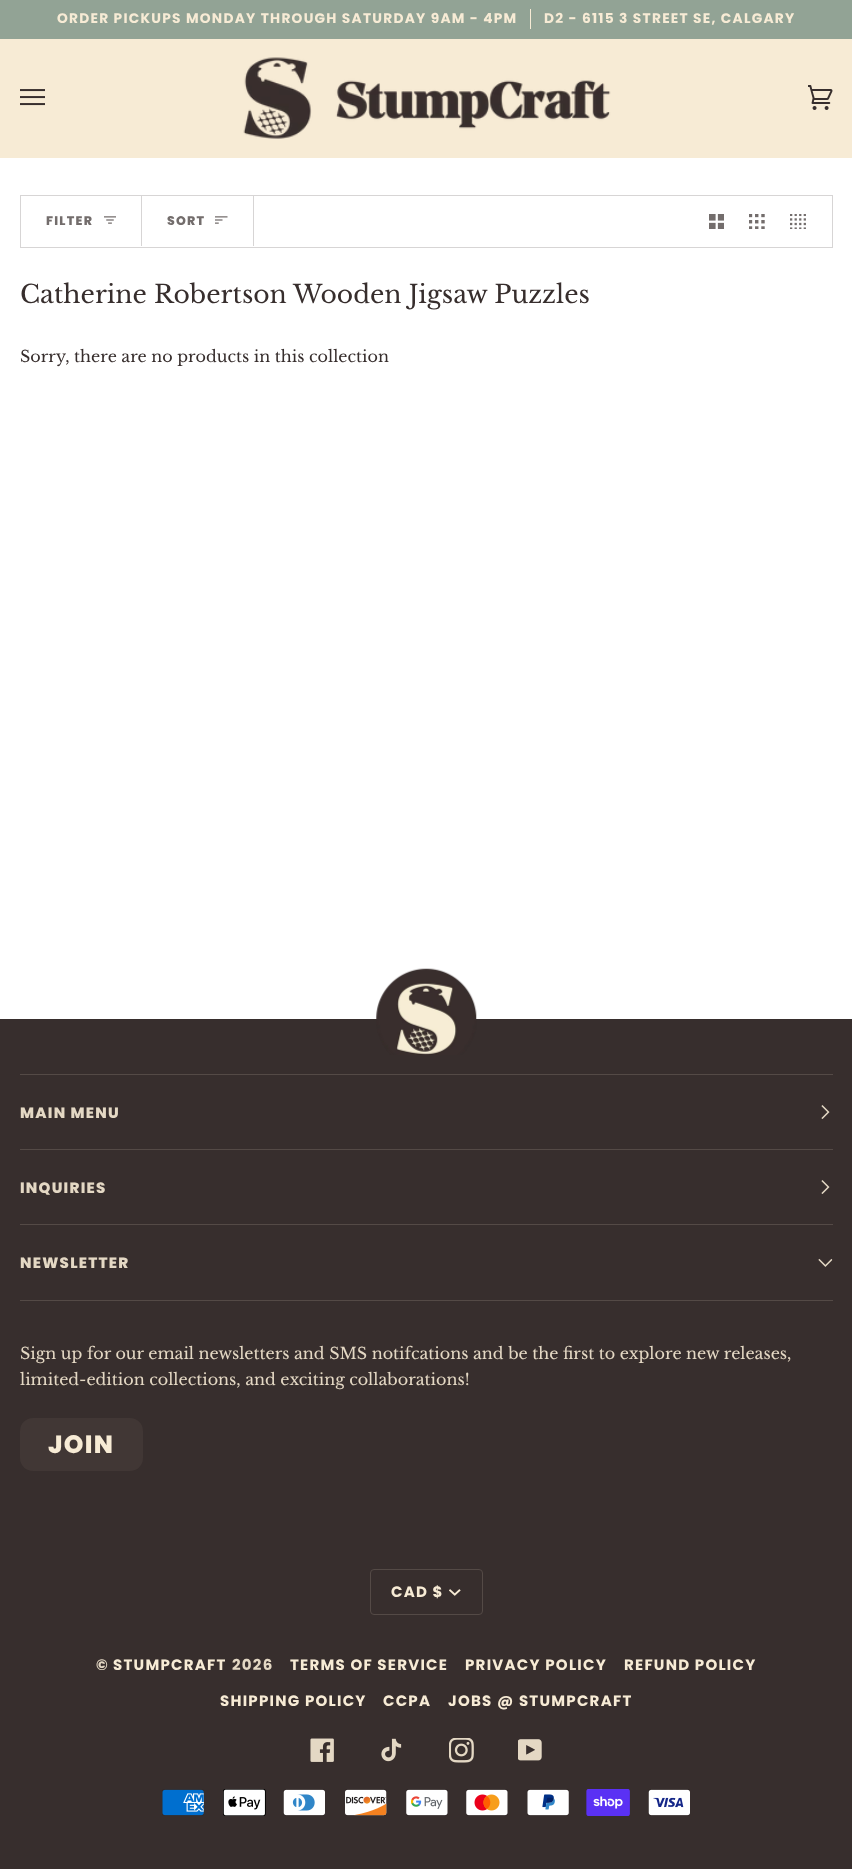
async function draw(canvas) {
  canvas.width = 852
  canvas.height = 1869
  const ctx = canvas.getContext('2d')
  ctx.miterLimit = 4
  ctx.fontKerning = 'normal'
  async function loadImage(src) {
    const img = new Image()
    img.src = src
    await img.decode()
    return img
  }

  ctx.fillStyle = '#fff'
  ctx.fillRect(0, 0, 852, 1869)
  ctx.fillStyle = '#92a395'
  ctx.fillRect(0, 0, 852, 39)
  ctx.letterSpacing = '1.25px'
  ctx.font = 'bold 13.75px Poppins'
  ctx.fillStyle = '#f7ebd5'
  ctx.fillText('ORDER PICKUPS MONDAY THROUGH SATURDAY 9AM - 4PM', 57, 23)
  ctx.fillRect(530, 9, 1, 20)
  ctx.fillText('D2 - 6115 3 STREET SE, CALGARY', 544, 23)
  ctx.fillRect(0, 39, 852, 119)
  ctx.drawImage(await loadImage('image0.png'), 20, 89, 25, 17)
  ctx.drawImage(await loadImage('image1.png'), 243, 57, 368, 82)
  ctx.drawImage(await loadImage('image2.png'), 808, 85, 25, 25)
  ctx.strokeStyle = '#d7d5d5'
  ctx.strokeRect(20.5, 195.5, 812, 52)
  ctx.fillStyle = '#d7d5d5'
  ctx.fillRect(141, 196, 1, 50)
  ctx.font = '800 12.5px Poppins'
  ctx.fillStyle = '#736d6c'
  ctx.fillText('FILTER', 46, 225)
  ctx.drawImage(await loadImage('image3.png'), 104, 216, 12, 8)
  ctx.fillStyle = '#d7d5d5'
  ctx.fillRect(253, 196, 1, 50)
  ctx.fillStyle = '#736d6c'
  ctx.fillText('SORT', 167, 225)
  ctx.drawImage(await loadImage('image4.png'), 215, 216, 13, 8)
  ctx.drawImage(await loadImage('image5.png'), 709, 214, 15, 15)
  ctx.drawImage(await loadImage('image6.png'), 749, 214, 16, 15)
  ctx.drawImage(await loadImage('image7.png'), 790, 214, 16, 15)
  ctx.letterSpacing = '0px'
  ctx.font = '25px Libre Baskerville'
  ctx.fillStyle = '#372e2d'
  ctx.fillText('Catherine Robertson Wooden Jigsaw Puzzles', 20, 303)
  ctx.font = '15.95px Libre Baskerville'
  ctx.fillText('Sorry, there are no products in this collection', 20, 362)
  ctx.fillRect(0, 1019, 852, 850)
  ctx.drawImage(await loadImage('image8.png'), 376, 968, 101, 87)
  ctx.fillStyle = '#544a46'
  ctx.fillRect(20, 1074, 813, 1)
  ctx.fillRect(20, 1149, 813, 1)
  ctx.letterSpacing = '1.25px'
  ctx.font = '800 15px Poppins'
  ctx.fillStyle = '#e4d8c4'
  ctx.fillText('MAIN MENU', 20, 1118)
  ctx.drawImage(await loadImage('image9.png'), 821, 1105, 9, 14)
  ctx.fillStyle = '#544a46'
  ctx.fillRect(20, 1224, 813, 1)
  ctx.fillStyle = '#e4d8c4'
  ctx.fillText('INQUIRIES', 20, 1193)
  ctx.drawImage(await loadImage('image9.png'), 821, 1180, 9, 14)
  ctx.fillStyle = '#544a46'
  ctx.fillRect(20, 1300, 813, 1)
  ctx.fillStyle = '#e4d8c4'
  ctx.fillText('NEWSLETTER', 20, 1268)
  ctx.drawImage(await loadImage('image10.png'), 818, 1258, 15, 9)
  ctx.letterSpacing = '0px'
  ctx.font = '15.95px Libre Baskerville'
  ctx.fillText('Sign up for our email newsletters and SMS notifcations and be the first to explore new releases,', 20, 1359)
  ctx.fillText('limited-edition collections, and exciting collaborations!', 20, 1385)
  ctx.fillStyle = '#413735'
  ctx.beginPath()
  ctx.roundRect(20, 1418, 123, 53, 13)
  ctx.fill()
  ctx.letterSpacing = '1.25px'
  ctx.font = '800 25px Poppins'
  ctx.fillStyle = '#f7ebd5'
  ctx.fillText('JOIN', 48, 1453)
  ctx.beginPath()
  ctx.roundRect(370.5, 1569.5, 112, 45, 3.5)
  ctx.strokeStyle = '#544a46'
  ctx.stroke()
  ctx.font = 'bold 15px Poppins'
  ctx.fillText('CAD $', 391, 1597)
  ctx.drawImage(await loadImage('image11.png'), 449, 1589, 12, 7)
  ctx.fillStyle = '#e4d8c4'
  ctx.fillText('©', 96, 1670)
  ctx.fillStyle = '#f7ebd5'
  ctx.fillText('STUMPCRAFT', 113, 1670)
  ctx.fillStyle = '#e4d8c4'
  ctx.fillText('2026', 232, 1670)
  ctx.fillStyle = '#f7ebd5'
  ctx.fillText('TERMS OF SERVICE', 290, 1670)
  ctx.fillText('PRIVACY POLICY', 465, 1670)
  ctx.fillText('REFUND POLICY', 624, 1670)
  ctx.fillText('SHIPPING POLICY', 220, 1706)
  ctx.fillText('CCPA', 383, 1706)
  ctx.fillText('JOBS @ STUMPCRAFT', 448, 1706)
  ctx.drawImage(await loadImage('image12.png'), 310, 1738, 24, 24)
  ctx.drawImage(await loadImage('image13.png'), 381, 1738, 21, 24)
  ctx.drawImage(await loadImage('image14.png'), 449, 1738, 25, 25)
  ctx.drawImage(await loadImage('image15.png'), 518, 1739, 24, 22)
  ctx.drawImage(await loadImage('image16.png'), 162, 1789, 42, 27)
  ctx.drawImage(await loadImage('image17.png'), 223, 1789, 43, 27)
  ctx.drawImage(await loadImage('image18.png'), 283, 1789, 42, 27)
  ctx.drawImage(await loadImage('image19.png'), 345, 1789, 42, 27)
  ctx.drawImage(await loadImage('image20.png'), 406, 1789, 42, 27)
  ctx.drawImage(await loadImage('image21.png'), 466, 1789, 42, 27)
  ctx.drawImage(await loadImage('image22.png'), 527, 1789, 42, 27)
  ctx.drawImage(await loadImage('image23.png'), 586, 1789, 44, 27)
  ctx.drawImage(await loadImage('image24.png'), 648, 1789, 42, 27)
}

draw(document.querySelector('canvas'))
